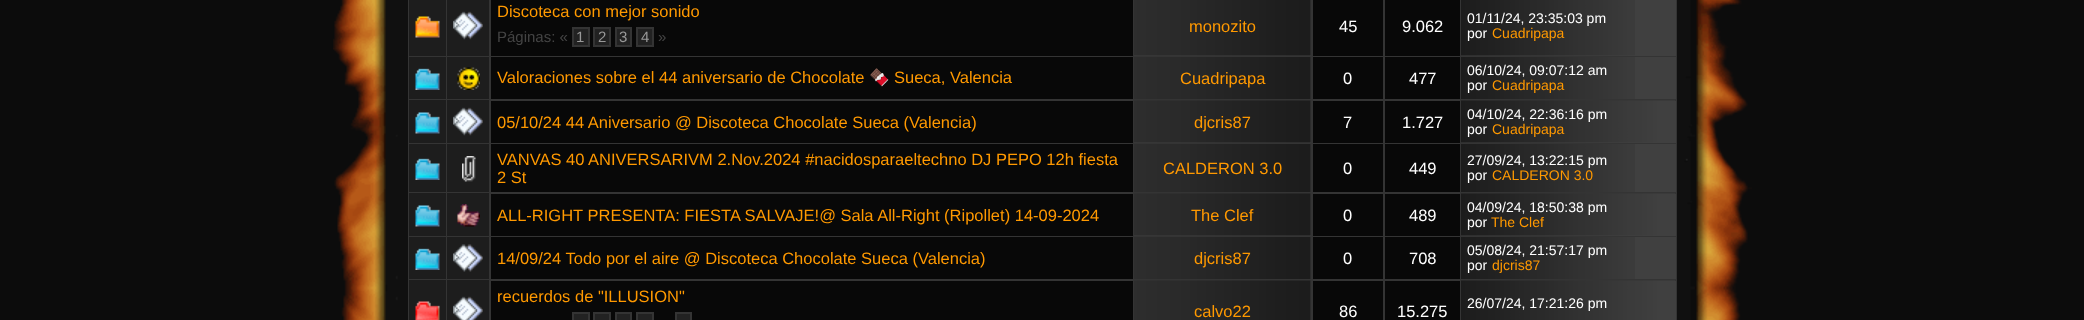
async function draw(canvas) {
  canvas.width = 2084
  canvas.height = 320
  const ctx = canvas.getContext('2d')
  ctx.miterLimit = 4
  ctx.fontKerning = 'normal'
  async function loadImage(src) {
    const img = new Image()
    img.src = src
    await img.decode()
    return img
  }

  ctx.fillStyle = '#0c0c0c'
  ctx.fillRect(0, 0, 2084, 320)
  ctx.drawImage(await loadImage('image0.png'), 333, 0, 1419, 320)
  ctx.fillStyle = '#343434'
  ctx.fillRect(408, 0, 1269, 320)
  ctx.fillStyle = '#1d1d1d'
  ctx.fillRect(409, 0, 37, 56)
  ctx.drawImage(await loadImage('image1.png'), 415, 16, 25, 22)
  ctx.fillRect(447, 0, 42, 56)
  ctx.drawImage(await loadImage('image2.png'), 453, 11, 30, 29)
  ctx.fillStyle = '#080808'
  ctx.fillRect(491, 0, 642, 56)
  ctx.font = '16.5px Liberation Sans'
  ctx.fillStyle = '#f90'
  ctx.fillText('Discoteca con mejor sonido', 497, 17)
  ctx.font = '15px Liberation Sans'
  ctx.fillStyle = '#444'
  ctx.fillText('Páginas: «', 497, 42)
  ctx.fillStyle = '#222'
  ctx.beginPath()
  ctx.rect(573, 28, 16, 18)
  ctx.fill()
  ctx.strokeStyle = '#343434'
  ctx.lineWidth = 2
  ctx.stroke()
  ctx.fillStyle = '#999'
  ctx.fillText('1', 576, 42)
  ctx.fillStyle = '#222'
  ctx.beginPath()
  ctx.rect(594, 28, 16, 18)
  ctx.fill()
  ctx.stroke()
  ctx.fillStyle = '#999'
  ctx.fillText('2', 598, 42)
  ctx.fillStyle = '#222'
  ctx.beginPath()
  ctx.rect(616, 28, 15, 18)
  ctx.fill()
  ctx.stroke()
  ctx.fillStyle = '#999'
  ctx.fillText('3', 619, 42)
  ctx.fillStyle = '#222'
  ctx.beginPath()
  ctx.rect(637, 28, 16, 18)
  ctx.fill()
  ctx.stroke()
  ctx.fillStyle = '#999'
  ctx.fillText('4', 641, 42)
  ctx.fillStyle = '#444'
  ctx.fillText('»', 658, 42)
  ctx.fillStyle = '#404040'
  ctx.fillRect(1134, 55, 177, 1)
  ctx.drawImage(await loadImage('image3.png'), 1134, 0, 177, 56)
  ctx.font = '16.5px Liberation Sans'
  ctx.fillStyle = '#f90'
  ctx.fillText('monozito', 1189, 32)
  ctx.fillStyle = '#080808'
  ctx.fillRect(1313, 0, 70, 56)
  ctx.fillStyle = '#fff'
  ctx.fillText('45', 1339, 32)
  ctx.fillStyle = '#080808'
  ctx.fillRect(1385, 0, 75, 56)
  ctx.fillStyle = '#fff'
  ctx.fillText('9.062', 1402, 32)
  ctx.fillStyle = '#404040'
  ctx.fillRect(1461, 0, 215, 56)
  ctx.drawImage(await loadImage('image4.png'), 1461, 0, 174, 56)
  ctx.font = '14px Liberation Sans'
  ctx.fillStyle = '#fff'
  ctx.fillText('01/11/24, 23:35:03 pm', 1467, 23)
  ctx.fillText('por', 1467, 38)
  ctx.fillStyle = '#f90'
  ctx.fillText('Cuadripapa', 1492, 38)
  ctx.fillStyle = '#1d1d1d'
  ctx.fillRect(409, 57, 37, 42)
  ctx.drawImage(await loadImage('image5.png'), 415, 68, 25, 22)
  ctx.fillRect(447, 57, 42, 42)
  ctx.drawImage(await loadImage('image6.png'), 457, 67, 23, 23)
  ctx.fillStyle = '#080808'
  ctx.fillRect(491, 57, 642, 42)
  ctx.font = '16.5px Liberation Sans'
  ctx.fillStyle = '#f90'
  ctx.fillText('Valoraciones sobre el 44 aniversario de Chocolate', 497, 83)
  ctx.font = '16.5px Noto Color Emoji'
  ctx.fillText('🍫', 869, 83)
  ctx.font = '16.5px Liberation Sans'
  ctx.fillText('Sueca, Valencia', 894, 83)
  ctx.drawImage(await loadImage('image7.png'), 1134, 57, 177, 42)
  ctx.fillText('Cuadripapa', 1180, 84)
  ctx.fillStyle = '#080808'
  ctx.fillRect(1313, 57, 70, 42)
  ctx.fillStyle = '#fff'
  ctx.fillText('0', 1343, 84)
  ctx.fillStyle = '#080808'
  ctx.fillRect(1385, 57, 75, 42)
  ctx.fillStyle = '#fff'
  ctx.fillText('477', 1409, 84)
  ctx.fillStyle = '#404040'
  ctx.fillRect(1635, 57, 41, 42)
  ctx.drawImage(await loadImage('image8.png'), 1461, 57, 174, 42)
  ctx.font = '14px Liberation Sans'
  ctx.fillStyle = '#fff'
  ctx.fillText('06/10/24, 09:07:12 am', 1467, 75)
  ctx.fillText('por', 1467, 90)
  ctx.fillStyle = '#f90'
  ctx.fillText('Cuadripapa', 1492, 90)
  ctx.fillStyle = '#1d1d1d'
  ctx.fillRect(409, 100, 37, 43)
  ctx.drawImage(await loadImage('image9.png'), 415, 112, 25, 22)
  ctx.fillRect(447, 100, 42, 43)
  ctx.drawImage(await loadImage('image2.png'), 453, 107, 30, 29)
  ctx.fillStyle = '#080808'
  ctx.fillRect(491, 101, 642, 42)
  ctx.font = '16.5px Liberation Sans'
  ctx.fillStyle = '#f90'
  ctx.fillText('05/10/24 44 Aniversario @ Discoteca Chocolate Sueca (Valencia)', 497, 128)
  ctx.fillStyle = '#404040'
  ctx.fillRect(1134, 142, 177, 1)
  ctx.drawImage(await loadImage('image10.png'), 1134, 100, 177, 43)
  ctx.fillStyle = '#f90'
  ctx.fillText('djcris87', 1194, 128)
  ctx.fillStyle = '#080808'
  ctx.fillRect(1313, 101, 70, 42)
  ctx.fillStyle = '#fff'
  ctx.fillText('7', 1343, 128)
  ctx.fillStyle = '#080808'
  ctx.fillRect(1385, 101, 75, 42)
  ctx.fillStyle = '#fff'
  ctx.fillText('1.727', 1402, 128)
  ctx.fillStyle = '#404040'
  ctx.fillRect(1461, 101, 215, 42)
  ctx.drawImage(await loadImage('image11.png'), 1461, 100, 214, 43)
  ctx.font = '14px Liberation Sans'
  ctx.fillStyle = '#fff'
  ctx.fillText('04/10/24, 22:36:16 pm', 1467, 119)
  ctx.fillText('por', 1467, 134)
  ctx.fillStyle = '#f90'
  ctx.fillText('Cuadripapa', 1492, 134)
  ctx.fillStyle = '#1d1d1d'
  ctx.fillRect(409, 144, 37, 48)
  ctx.drawImage(await loadImage('image5.png'), 415, 158, 25, 22)
  ctx.fillRect(447, 144, 42, 48)
  ctx.drawImage(await loadImage('image12.png'), 462, 156, 14, 26)
  ctx.fillStyle = '#080808'
  ctx.fillRect(491, 144, 642, 48)
  ctx.font = '16.5px Liberation Sans'
  ctx.fillStyle = '#f90'
  ctx.fillText('VANVAS 40 ANIVERSARIVM 2.Nov.2024 #nacidosparaeltechno DJ PEPO 12h fiesta', 497, 165)
  ctx.fillText('2 St', 497, 183)
  ctx.drawImage(await loadImage('image13.png'), 1134, 144, 177, 48)
  ctx.fillText('CALDERON 3.0', 1163, 174)
  ctx.fillStyle = '#080808'
  ctx.fillRect(1313, 144, 70, 48)
  ctx.fillStyle = '#fff'
  ctx.fillText('0', 1343, 174)
  ctx.fillStyle = '#080808'
  ctx.fillRect(1385, 144, 75, 48)
  ctx.fillStyle = '#fff'
  ctx.fillText('449', 1409, 174)
  ctx.fillStyle = '#404040'
  ctx.fillRect(1635, 144, 41, 48)
  ctx.drawImage(await loadImage('image14.png'), 1461, 144, 174, 48)
  ctx.font = '14px Liberation Sans'
  ctx.fillStyle = '#fff'
  ctx.fillText('27/09/24, 13:22:15 pm', 1467, 165)
  ctx.fillText('por', 1467, 180)
  ctx.fillStyle = '#f90'
  ctx.fillText('CALDERON 3.0', 1492, 180)
  ctx.fillStyle = '#1d1d1d'
  ctx.fillRect(409, 193, 37, 43)
  ctx.drawImage(await loadImage('image9.png'), 415, 205, 25, 22)
  ctx.fillRect(447, 193, 42, 43)
  ctx.drawImage(await loadImage('image15.png'), 457, 204, 23, 23)
  ctx.fillStyle = '#080808'
  ctx.fillRect(491, 194, 642, 42)
  ctx.font = '16.5px Liberation Sans'
  ctx.fillStyle = '#f90'
  ctx.fillText('ALL-RIGHT PRESENTA: FIESTA SALVAJE!@ Sala All-Right (Ripollet) 14-09-2024', 497, 221)
  ctx.fillStyle = '#404040'
  ctx.fillRect(1134, 235, 177, 1)
  ctx.drawImage(await loadImage('image10.png'), 1134, 193, 177, 43)
  ctx.fillStyle = '#f90'
  ctx.fillText('The Clef', 1191, 221)
  ctx.fillStyle = '#080808'
  ctx.fillRect(1313, 194, 70, 42)
  ctx.fillStyle = '#fff'
  ctx.fillText('0', 1343, 221)
  ctx.fillStyle = '#080808'
  ctx.fillRect(1385, 194, 75, 42)
  ctx.fillStyle = '#fff'
  ctx.fillText('489', 1409, 221)
  ctx.fillStyle = '#404040'
  ctx.fillRect(1461, 194, 215, 42)
  ctx.drawImage(await loadImage('image16.png'), 1461, 193, 214, 43)
  ctx.font = '14px Liberation Sans'
  ctx.fillStyle = '#fff'
  ctx.fillText('04/09/24, 18:50:38 pm', 1467, 212)
  ctx.fillText('por', 1467, 227)
  ctx.fillStyle = '#f90'
  ctx.fillText('The Clef', 1491, 227)
  ctx.fillStyle = '#1d1d1d'
  ctx.fillRect(409, 237, 37, 42)
  ctx.drawImage(await loadImage('image5.png'), 415, 248, 25, 22)
  ctx.fillRect(447, 237, 42, 42)
  ctx.drawImage(await loadImage('image17.png'), 453, 244, 30, 28)
  ctx.fillStyle = '#080808'
  ctx.fillRect(491, 237, 642, 42)
  ctx.font = '16.5px Liberation Sans'
  ctx.fillStyle = '#f90'
  ctx.fillText('14/09/24 Todo por el aire @ Discoteca Chocolate Sueca (Valencia)', 497, 264)
  ctx.drawImage(await loadImage('image7.png'), 1134, 237, 177, 42)
  ctx.fillText('djcris87', 1194, 264)
  ctx.fillStyle = '#080808'
  ctx.fillRect(1313, 237, 70, 42)
  ctx.fillStyle = '#fff'
  ctx.fillText('0', 1343, 264)
  ctx.fillStyle = '#080808'
  ctx.fillRect(1385, 237, 75, 42)
  ctx.fillStyle = '#fff'
  ctx.fillText('708', 1409, 264)
  ctx.fillStyle = '#404040'
  ctx.fillRect(1635, 237, 41, 42)
  ctx.drawImage(await loadImage('image18.png'), 1461, 237, 174, 42)
  ctx.font = '14px Liberation Sans'
  ctx.fillStyle = '#fff'
  ctx.fillText('05/08/24, 21:57:17 pm', 1467, 255)
  ctx.fillText('por', 1467, 270)
  ctx.fillStyle = '#f90'
  ctx.fillText('djcris87', 1492, 270)
  ctx.fillStyle = '#1d1d1d'
  ctx.fillRect(409, 280, 37, 40)
  ctx.drawImage(await loadImage('image19.png'), 415, 301, 25, 19)
  ctx.fillRect(447, 280, 42, 40)
  ctx.drawImage(await loadImage('image20.png'), 453, 296, 30, 24)
  ctx.fillStyle = '#080808'
  ctx.fillRect(491, 281, 642, 39)
  ctx.font = '16.5px Liberation Sans'
  ctx.fillStyle = '#f90'
  ctx.fillText('recuerdos de "ILLUSION"', 497, 302)
  ctx.fillStyle = '#222'
  ctx.beginPath()
  ctx.rect(573, 313, 16, 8)
  ctx.fill()
  ctx.stroke()
  ctx.beginPath()
  ctx.rect(594, 313, 16, 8)
  ctx.fill()
  ctx.stroke()
  ctx.beginPath()
  ctx.rect(616, 313, 15, 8)
  ctx.fill()
  ctx.stroke()
  ctx.beginPath()
  ctx.rect(637, 313, 16, 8)
  ctx.fill()
  ctx.stroke()
  ctx.beginPath()
  ctx.rect(676, 313, 15, 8)
  ctx.fill()
  ctx.stroke()
  ctx.drawImage(await loadImage('image21.png'), 1134, 280, 177, 40)
  ctx.fillStyle = '#f90'
  ctx.fillText('calvo22', 1194, 317)
  ctx.fillStyle = '#080808'
  ctx.fillRect(1313, 281, 70, 39)
  ctx.fillStyle = '#fff'
  ctx.fillText('86', 1339, 317)
  ctx.fillStyle = '#080808'
  ctx.fillRect(1385, 281, 75, 39)
  ctx.fillStyle = '#fff'
  ctx.fillText('15.275', 1397, 317)
  ctx.fillStyle = '#404040'
  ctx.fillRect(1675, 281, 1, 39)
  ctx.drawImage(await loadImage('image22.png'), 1461, 280, 214, 40)
  ctx.font = '14px Liberation Sans'
  ctx.fillStyle = '#fff'
  ctx.fillText('26/07/24, 17:21:26 pm', 1467, 308)
}

draw(document.querySelector('canvas'))
